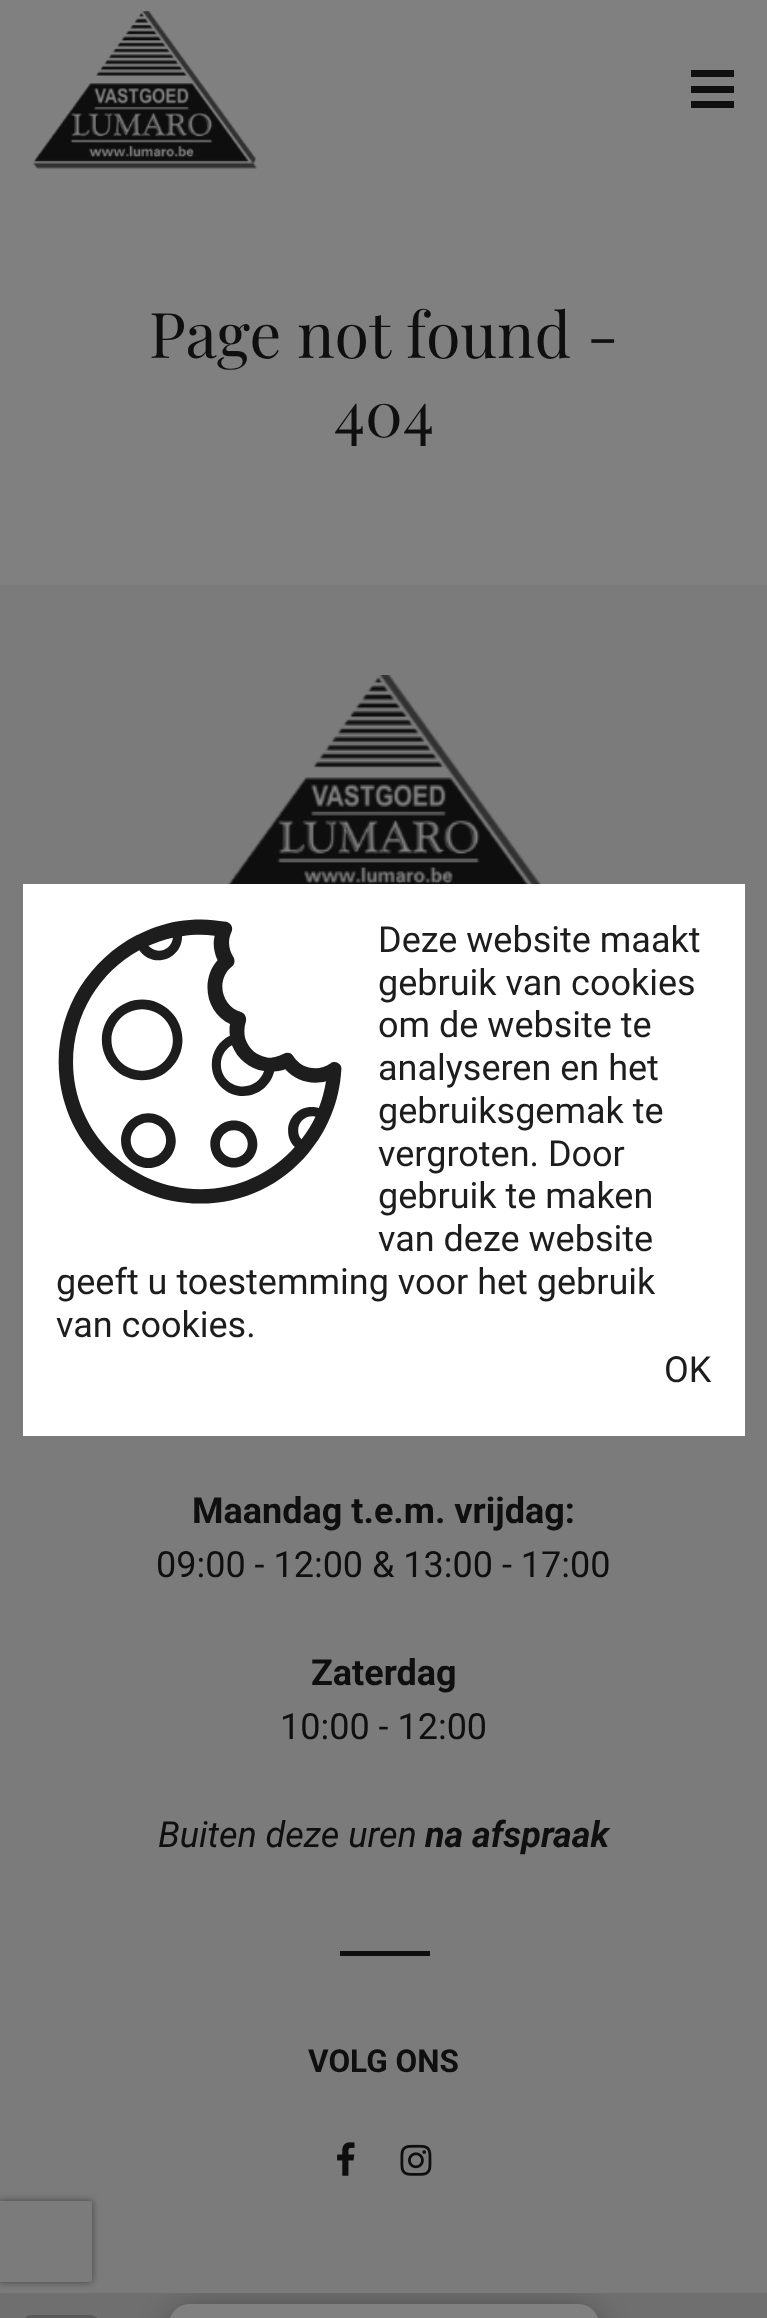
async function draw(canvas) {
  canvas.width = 767
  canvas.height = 2318
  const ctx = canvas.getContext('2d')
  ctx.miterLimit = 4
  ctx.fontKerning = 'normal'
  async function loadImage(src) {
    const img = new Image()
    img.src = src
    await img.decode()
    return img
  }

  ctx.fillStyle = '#808080'
  ctx.fillRect(0, 0, 767, 2318)
  ctx.drawImage(await loadImage('image0.png'), 33, 11, 224, 158)
  ctx.fillStyle = '#0f0f0f'
  ctx.fillRect(691, 86, 43, 7)
  ctx.fillRect(691, 70, 43, 7)
  ctx.fillRect(691, 101, 43, 7)
  ctx.font = '63px Playfair Display'
  ctx.fillText('Page not found -', 149, 358)
  ctx.fillText('404', 334, 437)
  ctx.fillStyle = '#7b7b7b'
  ctx.fillRect(0, 585, 767, 1708)
  ctx.fillStyle = '#fff'
  ctx.fillRect(23, 884, 722, 552)
  ctx.drawImage(await loadImage('image1.png'), 58, 919, 284, 285)
  ctx.font = '36px Roboto'
  ctx.fillStyle = '#1d1d1d'
  ctx.fillText('Deze website maakt', 378, 952)
  ctx.fillText('gebruik van cookies', 378, 995)
  ctx.fillText('om de website te', 378, 1037)
  ctx.fillText('analyseren en het', 378, 1080)
  ctx.fillText('gebruiksgemak te', 378, 1123)
  ctx.fillText('vergroten. Door', 378, 1166)
  ctx.fillText('gebruik te maken', 378, 1208)
  ctx.fillText('van deze website', 378, 1251)
  ctx.fillText('geeft u toestemming voor het gebruik', 56, 1294)
  ctx.fillText('van cookies.', 56, 1337)
  ctx.fillText('OK', 664, 1382)
  ctx.drawImage(await loadImage('image2.png'), 228, 675, 313, 209)
  ctx.font = 'bold 36px Roboto'
  ctx.fillStyle = '#0f0f0f'
  ctx.fillText('Maandag t.e.m. vrijdag:', 192, 1523)
  ctx.font = '36px Roboto'
  ctx.fillText('09:00 - 12:00 & 13:00 - 17:00', 156, 1577)
  ctx.font = 'bold 36px Roboto'
  ctx.fillText('Zaterdag', 311, 1685)
  ctx.font = '36px Roboto'
  ctx.fillText('10:00 - 12:00', 280, 1739)
  ctx.font = 'italic 36px Roboto'
  ctx.fillText('Buiten deze uren', 158, 1847)
  ctx.font = 'italic bold 36px Roboto'
  ctx.fillText('na afspraak', 425, 1847)
  ctx.fillRect(340, 1951, 90, 5)
  ctx.font = 'bold 31.5px Roboto'
  ctx.fillText('VOLG ONS', 308, 2072)
  ctx.drawImage(await loadImage('image3.png'), 337, 2142, 18, 34)
  ctx.drawImage(await loadImage('image4.png'), 400, 2144, 32, 32)
  ctx.fillStyle = '#6f6f6f'
  ctx.fillRect(0, 2293, 767, 25)
  ctx.beginPath()
  ctx.roundRect(25.5, 2317.5, 71, 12, 6.5)
  ctx.strokeStyle = '#595959'
  ctx.lineWidth = 5
  ctx.stroke()
  ctx.save()
  ctx.beginPath()
  ctx.rect(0, 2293, 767, 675)
  ctx.clip()
  ctx.fillStyle = '#00000066'
  ctx.filter = 'blur(16px)'
  ctx.beginPath()
  ctx.roundRect(169, 2311, 430, 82, 27)
  ctx.fill()
  ctx.filter = 'none'
  ctx.restore()
  ctx.fillStyle = '#808080'
  ctx.beginPath()
  ctx.roundRect(169, 2304, 430, 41, 27)
  ctx.fill()
  ctx.save()
  ctx.beginPath()
  ctx.moveTo(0, 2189)
  ctx.lineTo(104, 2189)
  ctx.lineTo(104, 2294)
  ctx.lineTo(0, 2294)
  ctx.closePath()
  ctx.moveTo(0, 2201)
  ctx.lineTo(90, 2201)
  ctx.bezierCurveTo(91, 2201, 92, 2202, 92, 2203)
  ctx.lineTo(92, 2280)
  ctx.bezierCurveTo(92, 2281, 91, 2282, 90, 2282)
  ctx.lineTo(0, 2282)
  ctx.bezierCurveTo(-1, 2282, -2, 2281, -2, 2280)
  ctx.lineTo(-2, 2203)
  ctx.bezierCurveTo(-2, 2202, -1, 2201, 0, 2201)
  ctx.closePath()
  ctx.clip('evenodd')
  ctx.fillStyle = '#404040'
  ctx.filter = 'blur(3.5px)'
  ctx.beginPath()
  ctx.roundRect(-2, 2201, 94, 81, 2)
  ctx.fill()
  ctx.filter = 'none'
  ctx.restore()
}

draw(document.querySelector('canvas'))
